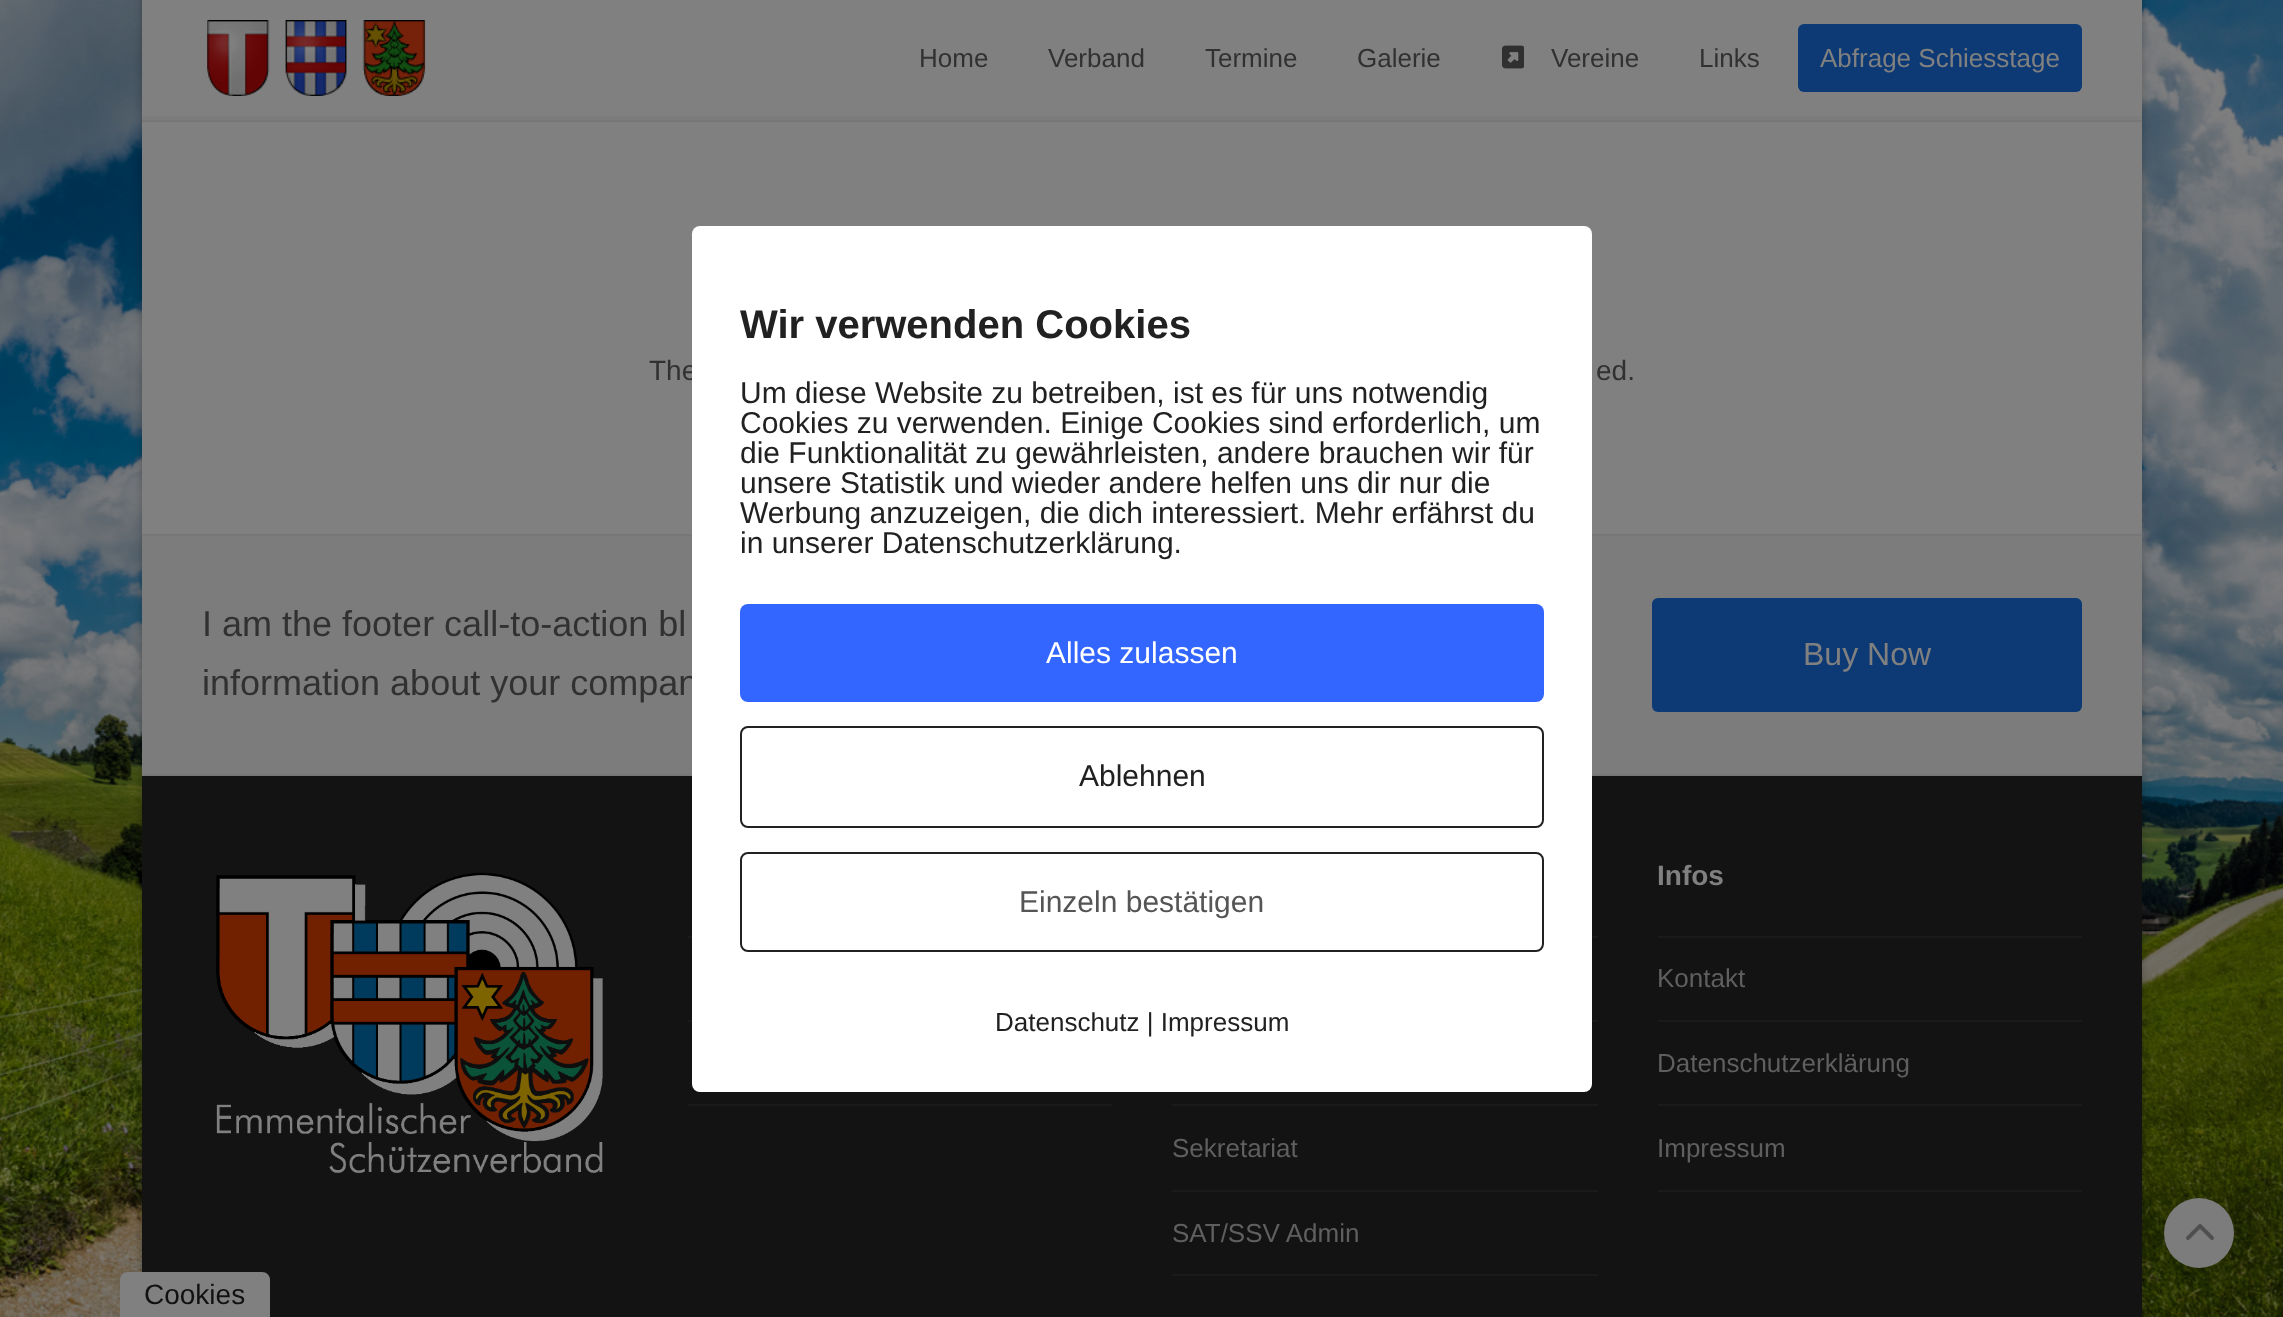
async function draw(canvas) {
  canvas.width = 2283
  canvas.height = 1317
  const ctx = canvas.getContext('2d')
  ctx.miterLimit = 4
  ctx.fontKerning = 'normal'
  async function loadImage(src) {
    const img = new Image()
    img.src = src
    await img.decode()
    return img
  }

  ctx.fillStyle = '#fff'
  ctx.fillRect(0, 0, 2283, 1317)
  ctx.drawImage(await loadImage('image0.png'), 0, 0, 2283, 1317)
  ctx.fillStyle = '#00000040'
  ctx.filter = 'blur(4px)'
  ctx.beginPath()
  ctx.rect(142, -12, 2000, 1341)
  ctx.fill()
  ctx.filter = 'none'
  ctx.fillStyle = '#808080'
  ctx.fillRect(142, 122, 2000, 412)
  ctx.fillRect(142, 0, 2000, 116)
  ctx.drawImage(await loadImage('image1.png'), 207, 20, 219, 76)
  ctx.font = '26px Liberation Sans'
  ctx.fillStyle = '#313131'
  ctx.fillText('Home', 919, 67)
  ctx.fillText('Verband', 1048, 67)
  ctx.fillText('Termine', 1205, 67)
  ctx.fillText('Galerie', 1357, 67)
  ctx.drawImage(await loadImage('image2.png'), 1502, 45, 22, 24)
  ctx.fillText('Vereine', 1551, 67)
  ctx.fillText('Links', 1699, 67)
  ctx.fillStyle = '#0d3a74'
  ctx.beginPath()
  ctx.roundRect(1798, 24, 284, 68, 6)
  ctx.fill()
  ctx.fillStyle = '#808080'
  ctx.fillText('Abfrage Schiesstage', 1820, 67)
  ctx.fillStyle = '#7c7c7c'
  ctx.fillRect(142, 116, 2000, 4)
  ctx.fillStyle = '#777'
  ctx.fillRect(142, 120, 2000, 2)
  ctx.font = '28px Liberation Sans'
  ctx.fillStyle = '#313131'
  ctx.fillText('The', 649, 380)
  ctx.fillText('ed.', 1596, 380)
  ctx.fillStyle = '#7c7c7c'
  ctx.fillRect(142, 536, 2000, 238)
  ctx.fillStyle = '#777'
  ctx.fillRect(142, 534, 2000, 2)
  ctx.fillRect(142, 774, 2000, 2)
  ctx.font = '36px Liberation Sans'
  ctx.fillStyle = '#313131'
  ctx.fillText('I am the footer call-to-action bl', 202, 636)
  ctx.fillText('information about your compan', 202, 695)
  ctx.fillStyle = '#0d3a74'
  ctx.beginPath()
  ctx.roundRect(1652, 598, 430, 114, 6)
  ctx.fill()
  ctx.font = '32px Liberation Sans'
  ctx.fillStyle = '#808080'
  ctx.fillText('Buy Now', 1803, 665)
  ctx.fillStyle = '#131313'
  ctx.fillRect(142, 776, 2000, 541)
  ctx.drawImage(await loadImage('image3.png'), 216, 872, 387, 302)
  ctx.fillStyle = '#1a1a1a'
  ctx.fillRect(688, 936, 4, 2)
  ctx.fillRect(688, 1020, 4, 2)
  ctx.fillRect(688, 1104, 424, 2)
  ctx.font = 'bold 28px Liberation Sans'
  ctx.fillStyle = '#808080'
  ctx.fillText('Infos', 1657, 885)
  ctx.fillStyle = '#1a1a1a'
  ctx.fillRect(1658, 936, 424, 2)
  ctx.fillRect(1658, 1020, 424, 2)
  ctx.font = '26px Liberation Sans'
  ctx.fillStyle = '#5f5f5f'
  ctx.fillText('Kontakt', 1657, 987)
  ctx.fillStyle = '#1a1a1a'
  ctx.fillRect(1658, 1104, 424, 2)
  ctx.fillStyle = '#5f5f5f'
  ctx.fillText('Datenschutzerklärung', 1657, 1072)
  ctx.fillStyle = '#1a1a1a'
  ctx.fillRect(1658, 1190, 424, 2)
  ctx.fillStyle = '#5f5f5f'
  ctx.fillText('Impressum', 1657, 1157)
  ctx.fillStyle = '#1a1a1a'
  ctx.fillRect(1592, 936, 6, 2)
  ctx.fillRect(1592, 1020, 6, 2)
  ctx.fillRect(1172, 1104, 426, 2)
  ctx.fillRect(1172, 1190, 426, 2)
  ctx.fillStyle = '#5f5f5f'
  ctx.fillText('Sekretariat', 1172, 1157)
  ctx.fillStyle = '#1a1a1a'
  ctx.fillRect(1172, 1274, 426, 2)
  ctx.fillStyle = '#5f5f5f'
  ctx.fillText('SAT/SSV Admin', 1172, 1242)
  ctx.fillStyle = '#fff'
  ctx.beginPath()
  ctx.roundRect(692, 226, 900, 866, 8)
  ctx.fill()
  ctx.font = 'bold 40px Liberation Sans'
  ctx.fillStyle = '#212121'
  ctx.fillText('Wir verwenden Cookies', 740, 338)
  ctx.font = '30px Liberation Sans'
  ctx.fillText('Um diese Website zu betreiben, ist es für uns notwendig', 740, 403)
  ctx.fillText('Cookies zu verwenden. Einige Cookies sind erforderlich, um', 740, 433)
  ctx.fillText('die Funktionalität zu gewährleisten, andere brauchen wir für', 740, 463)
  ctx.fillText('unsere Statistik und wieder andere helfen uns dir nur die', 740, 493)
  ctx.fillText('Werbung anzuzeigen, die dich interessiert. Mehr erfährst du', 740, 523)
  ctx.fillText('in unserer Datenschutzerklärung.', 740, 553)
  ctx.fillStyle = '#36f'
  ctx.beginPath()
  ctx.roundRect(740, 604, 804, 98, 8)
  ctx.fill()
  ctx.fillStyle = '#fff'
  ctx.fillText('Alles zulassen', 1046, 663)
  ctx.beginPath()
  ctx.roundRect(741, 727, 802, 100, 7)
  ctx.strokeStyle = '#212121'
  ctx.lineWidth = 2
  ctx.stroke()
  ctx.fillStyle = '#212121'
  ctx.fillText('Ablehnen', 1079, 786)
  ctx.beginPath()
  ctx.roundRect(741, 853, 802, 98, 7)
  ctx.stroke()
  ctx.fillStyle = '#555'
  ctx.fillText('Einzeln bestätigen', 1019, 912)
  ctx.font = '26px Liberation Sans'
  ctx.fillStyle = '#212121'
  ctx.fillText('Datenschutz | Impressum', 995, 1031)
  ctx.fillStyle = '#7c7c7c'
  ctx.beginPath()
  ctx.arc(2199, 1233, 35, 0, 2 * Math.PI)
  ctx.fill()
  ctx.drawImage(await loadImage('image4.png'), 2186, 1224, 28, 16)
  ctx.fillStyle = '#808080'
  ctx.beginPath()
  ctx.moveTo(128, 1272)
  ctx.lineTo(262, 1272)
  ctx.bezierCurveTo(266.5, 1272, 270, 1275.5, 270, 1280)
  ctx.lineTo(270, 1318)
  ctx.lineTo(120, 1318)
  ctx.lineTo(120, 1280)
  ctx.bezierCurveTo(120, 1275.5, 123.5, 1272, 128, 1272)
  ctx.closePath()
  ctx.fill()
  ctx.font = '28px Liberation Sans'
  ctx.fillStyle = '#111'
  ctx.fillText('Cookies', 144, 1304)
}

draw(document.querySelector('canvas'))
